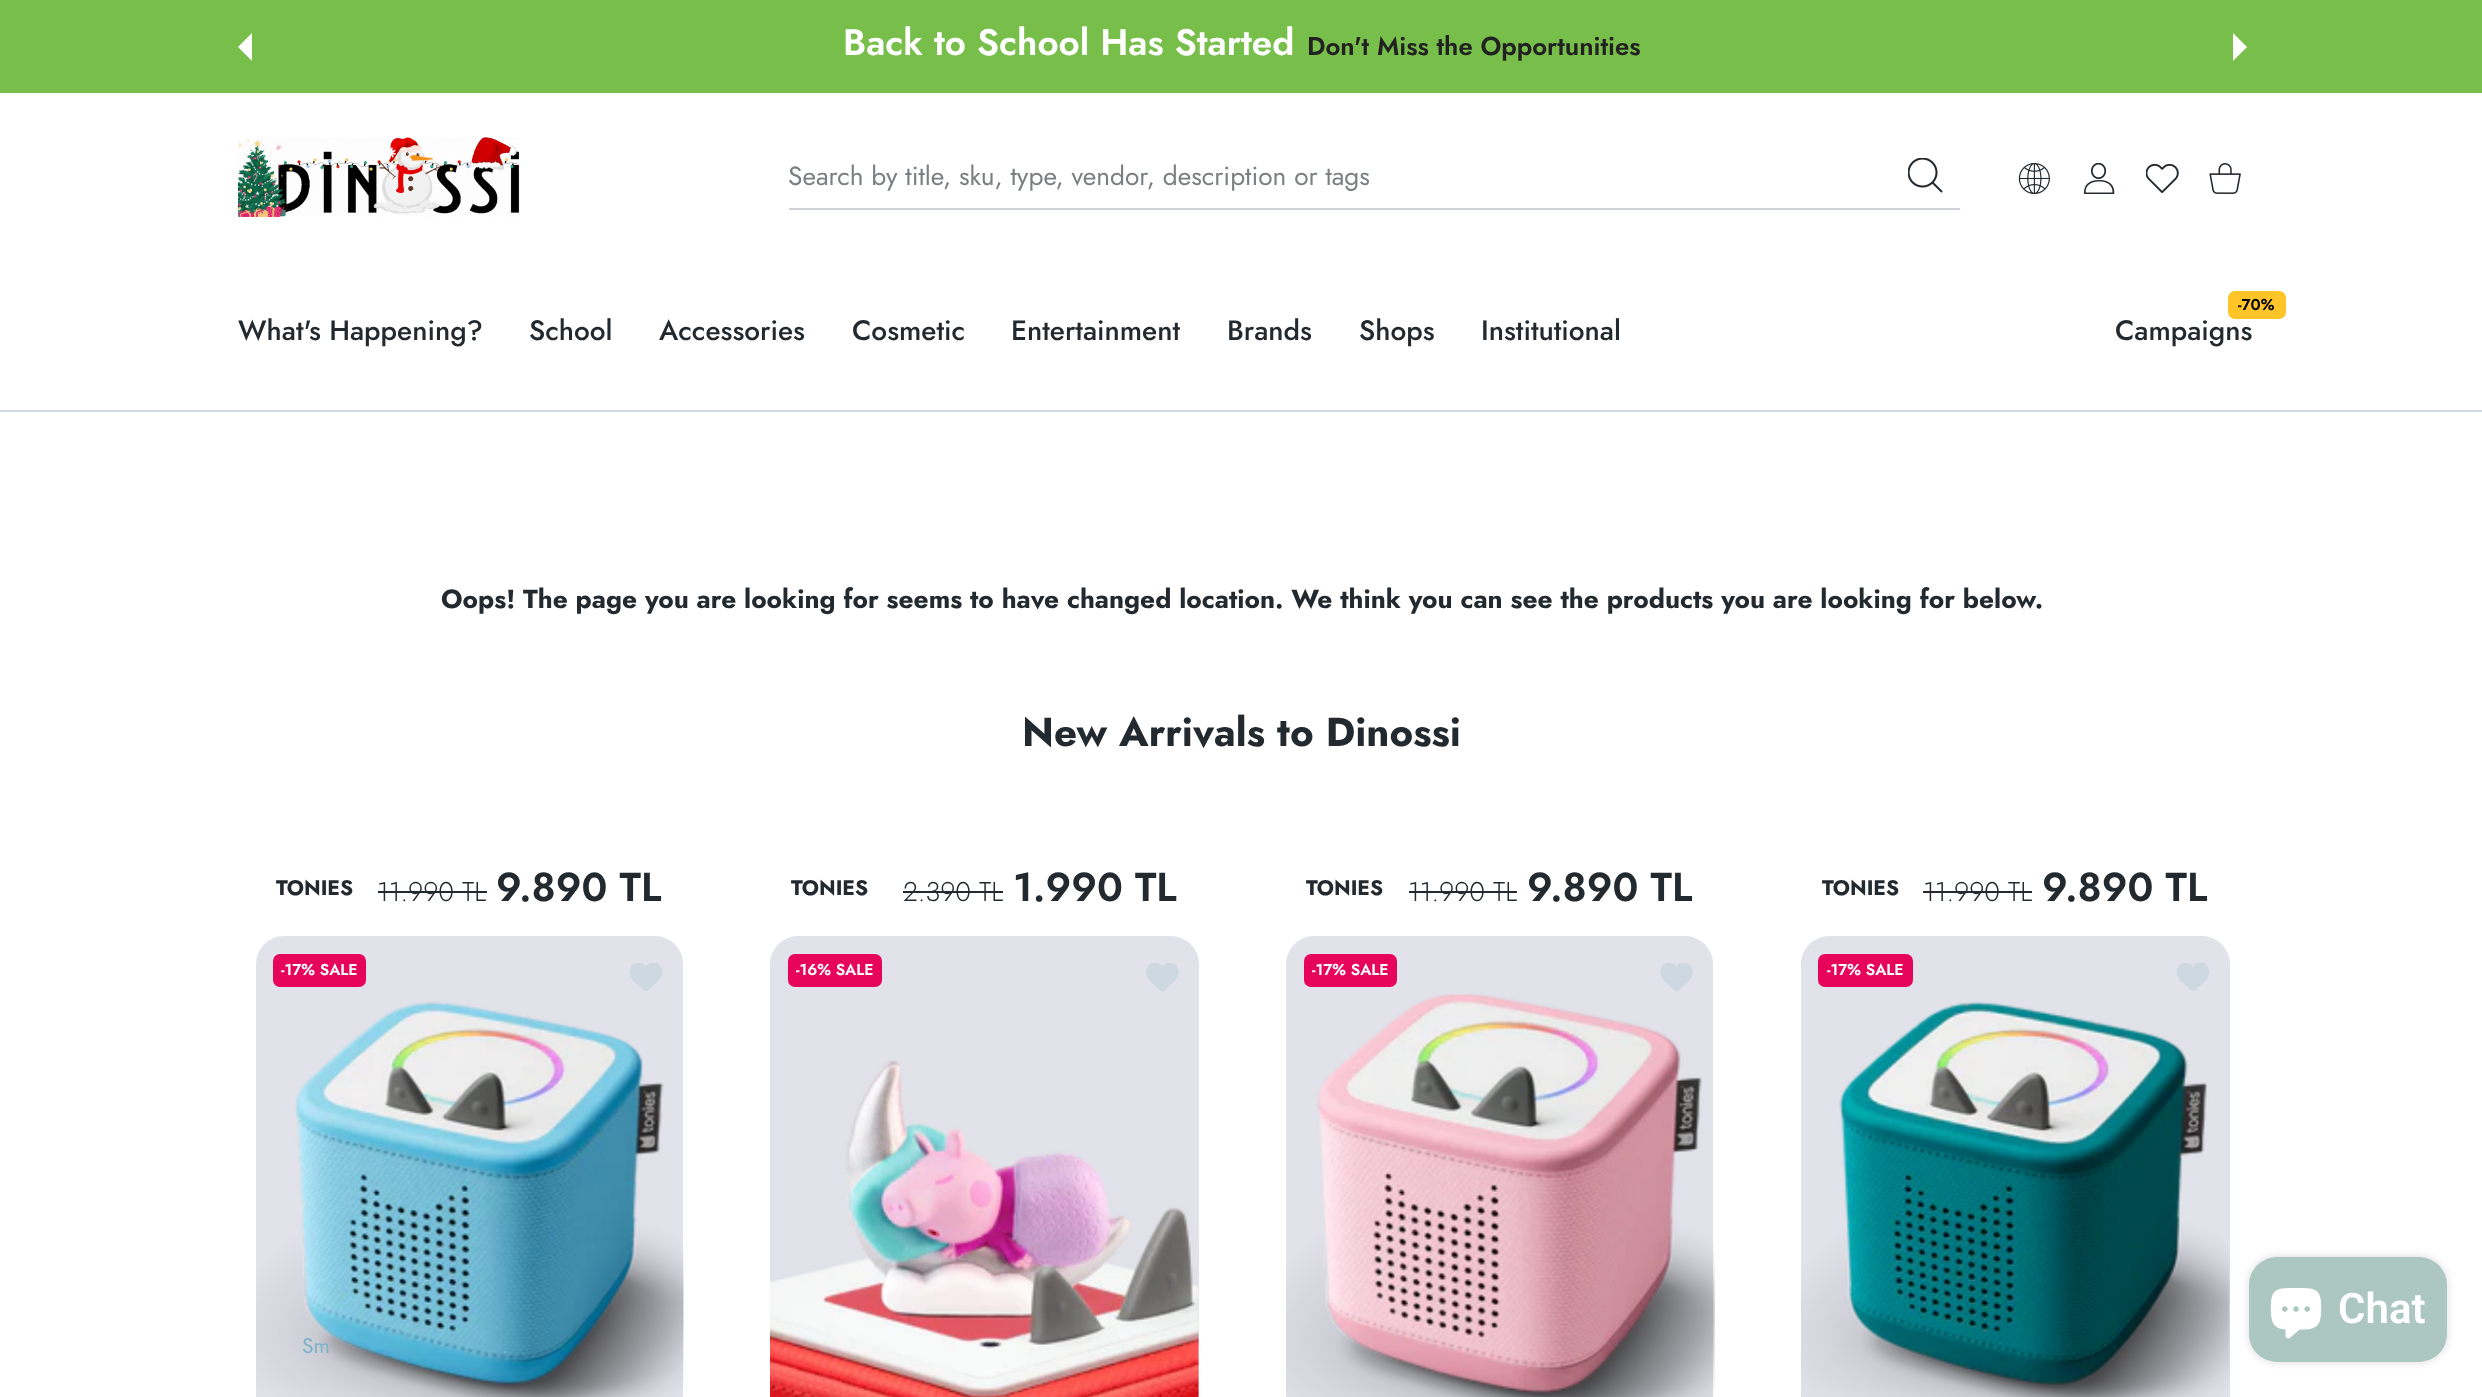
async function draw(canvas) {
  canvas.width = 2482
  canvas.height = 1397
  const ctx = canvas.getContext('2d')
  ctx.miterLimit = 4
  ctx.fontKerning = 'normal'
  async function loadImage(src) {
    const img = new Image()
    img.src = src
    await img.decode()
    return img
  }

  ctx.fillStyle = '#fff'
  ctx.fillRect(0, 0, 2482, 1397)
  ctx.fillStyle = '#77bf4a'
  ctx.fillRect(0, 0, 2482, 93)
  ctx.font = '600 36.75px Jost'
  ctx.fillStyle = '#fff'
  ctx.fillText('Back to School Has Started', 843, 55)
  ctx.font = '600 25.75px Jost'
  ctx.fillStyle = '#212121'
  ctx.fillText('Don\'t Miss the Opportunities', 1307, 55)
  ctx.fillStyle = '#fff'
  ctx.beginPath()
  ctx.moveTo(252, 33)
  ctx.lineTo(252, 61)
  ctx.lineTo(238, 47)
  ctx.closePath()
  ctx.fill()
  ctx.beginPath()
  ctx.moveTo(2233, 61)
  ctx.lineTo(2233, 33)
  ctx.lineTo(2247, 47)
  ctx.closePath()
  ctx.fill()
  ctx.fillStyle = '#cdd8e1'
  ctx.fillRect(0, 410, 2482, 2)
  ctx.drawImage(await loadImage('image0.png'), 238, 137, 282, 80)
  ctx.fillStyle = '#ced4da'
  ctx.fillRect(789, 208, 1171, 2)
  ctx.font = '26.25px Jost'
  ctx.fillStyle = '#7a7f82'
  ctx.fillText('Search by title, sku, type, vendor, description or tags', 788, 185)
  ctx.drawImage(await loadImage('image1.png'), 1908, 158, 35, 35)
  ctx.drawImage(await loadImage('image2.png'), 2018, 163, 32, 31)
  ctx.drawImage(await loadImage('image3.png'), 2083, 163, 32, 31)
  ctx.drawImage(await loadImage('image4.png'), 2146, 163, 33, 31)
  ctx.drawImage(await loadImage('image5.png'), 2209, 163, 32, 31)
  ctx.font = '500 28px Jost'
  ctx.fillStyle = '#22292f'
  ctx.fillText('What\'s Happening?', 238, 340)
  ctx.fillText('School', 529, 340)
  ctx.fillText('Accessories', 659, 340)
  ctx.fillText('Cosmetic', 852, 340)
  ctx.fillText('Entertainment', 1011, 340)
  ctx.fillText('Brands', 1227, 340)
  ctx.fillText('Shops', 1359, 340)
  ctx.fillText('Institutional', 1481, 340)
  ctx.fillStyle = '#ffc427'
  ctx.beginPath()
  ctx.roundRect(2228, 291, 58, 28, 7)
  ctx.fill()
  ctx.font = '600 15.75px Jost'
  ctx.fillStyle = '#000'
  ctx.fillText('-70%', 2238, 310)
  ctx.font = '500 28px Jost'
  ctx.fillStyle = '#22292f'
  ctx.fillText('Campaigns', 2115, 340)
  ctx.font = 'bold 26.25px Jost'
  ctx.fillText('Oops! The page you are looking for seems to have changed location. We think you can see the products you are looking for below.', 441, 608)
  ctx.font = 'bold 40.25px Jost'
  ctx.fillText('New Arrivals to Dinossi', 1022, 746)
  ctx.font = 'bold 21px Jost'
  ctx.fillText('TONIES', 276, 895)
  ctx.font = '300 27px Jost'
  ctx.fillText('11.990 TL', 377, 901)
  ctx.fillRect(378, 891, 109, 2)
  ctx.font = '600 40.25px Jost'
  ctx.fillText('9.890 TL', 496, 901)
  ctx.fillStyle = '#e1e2ea'
  ctx.beginPath()
  ctx.roundRect(256, 936, 427, 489, 28)
  ctx.fill()
  ctx.fillStyle = '#e6055b'
  ctx.beginPath()
  ctx.roundRect(273, 954, 93, 33, 7)
  ctx.fill()
  ctx.font = '600 15.75px Jost'
  ctx.fillStyle = '#fff'
  ctx.fillText('-17% SALE', 281, 975)
  ctx.drawImage(await loadImage('image6.png'), 629, 963, 33, 28)
  ctx.drawImage(await loadImage('image7.png'), 256, 1001, 428, 396)
  ctx.font = 'bold 21px Jost'
  ctx.fillStyle = '#22292f'
  ctx.fillText('TONIES', 791, 895)
  ctx.font = '300 27px Jost'
  ctx.fillText('2.390 TL', 903, 901)
  ctx.fillRect(903, 891, 100, 2)
  ctx.font = '600 40.25px Jost'
  ctx.fillText('1.990 TL', 1013, 901)
  ctx.fillStyle = '#e1e2ea'
  ctx.beginPath()
  ctx.roundRect(770, 936, 429, 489, 28)
  ctx.fill()
  ctx.fillStyle = '#e6055b'
  ctx.beginPath()
  ctx.roundRect(788, 954, 94, 33, 7)
  ctx.fill()
  ctx.font = '600 15.75px Jost'
  ctx.fillStyle = '#fff'
  ctx.fillText('-16% SALE', 796, 975)
  ctx.drawImage(await loadImage('image8.png'), 1146, 963, 33, 29)
  ctx.drawImage(await loadImage('image9.png'), 770, 1060, 429, 337)
  ctx.font = 'bold 21px Jost'
  ctx.fillStyle = '#22292f'
  ctx.fillText('TONIES', 1306, 895)
  ctx.font = '300 27px Jost'
  ctx.fillText('11.990 TL', 1408, 901)
  ctx.fillRect(1409, 891, 108, 2)
  ctx.font = '600 40.25px Jost'
  ctx.fillText('9.890 TL', 1527, 901)
  ctx.fillStyle = '#e1e2ea'
  ctx.beginPath()
  ctx.roundRect(1286, 936, 427, 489, 28)
  ctx.fill()
  ctx.fillStyle = '#e6055b'
  ctx.beginPath()
  ctx.roundRect(1304, 954, 93, 33, 7)
  ctx.fill()
  ctx.font = '600 15.75px Jost'
  ctx.fillStyle = '#fff'
  ctx.fillText('-17% SALE', 1312, 975)
  ctx.drawImage(await loadImage('image10.png'), 1660, 963, 33, 29)
  ctx.drawImage(await loadImage('image11.png'), 1286, 994, 429, 403)
  ctx.font = 'bold 21px Jost'
  ctx.fillStyle = '#22292f'
  ctx.fillText('TONIES', 1822, 895)
  ctx.font = '300 27px Jost'
  ctx.fillText('11.990 TL', 1923, 901)
  ctx.fillRect(1923, 891, 109, 2)
  ctx.font = '600 40.25px Jost'
  ctx.fillText('9.890 TL', 2042, 901)
  ctx.fillStyle = '#e1e2ea'
  ctx.beginPath()
  ctx.roundRect(1801, 936, 429, 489, 28)
  ctx.fill()
  ctx.fillStyle = '#e6055b'
  ctx.beginPath()
  ctx.roundRect(1818, 954, 95, 33, 7)
  ctx.fill()
  ctx.font = '600 15.75px Jost'
  ctx.fillStyle = '#fff'
  ctx.fillText('-17% SALE', 1827, 975)
  ctx.drawImage(await loadImage('image6.png'), 2176, 963, 33, 28)
  ctx.drawImage(await loadImage('image12.png'), 1801, 1001, 429, 396)
  ctx.fillStyle = '#00000026'
  ctx.filter = 'blur(4.5px)'
  ctx.beginPath()
  ctx.roundRect(2249, 1257, 198, 105, 28)
  ctx.fill()
  ctx.filter = 'none'
  ctx.fillStyle = '#acc7bf'
  ctx.beginPath()
  ctx.roundRect(2249, 1257, 198, 105, 28)
  ctx.fill()
  ctx.drawImage(await loadImage('image13.png'), 2270, 1288, 52, 51)
  ctx.font = '600 42px Roboto'
  ctx.fillStyle = '#fff'
  ctx.fillText('Chat', 2338, 1323)
  ctx.font = '21px Jost'
  ctx.fillStyle = '#7bb3c9'
  ctx.fillText('Sm', 302, 1353)
  ctx.fillText('.', 502, 1353)
}

draw(document.querySelector('canvas'))
